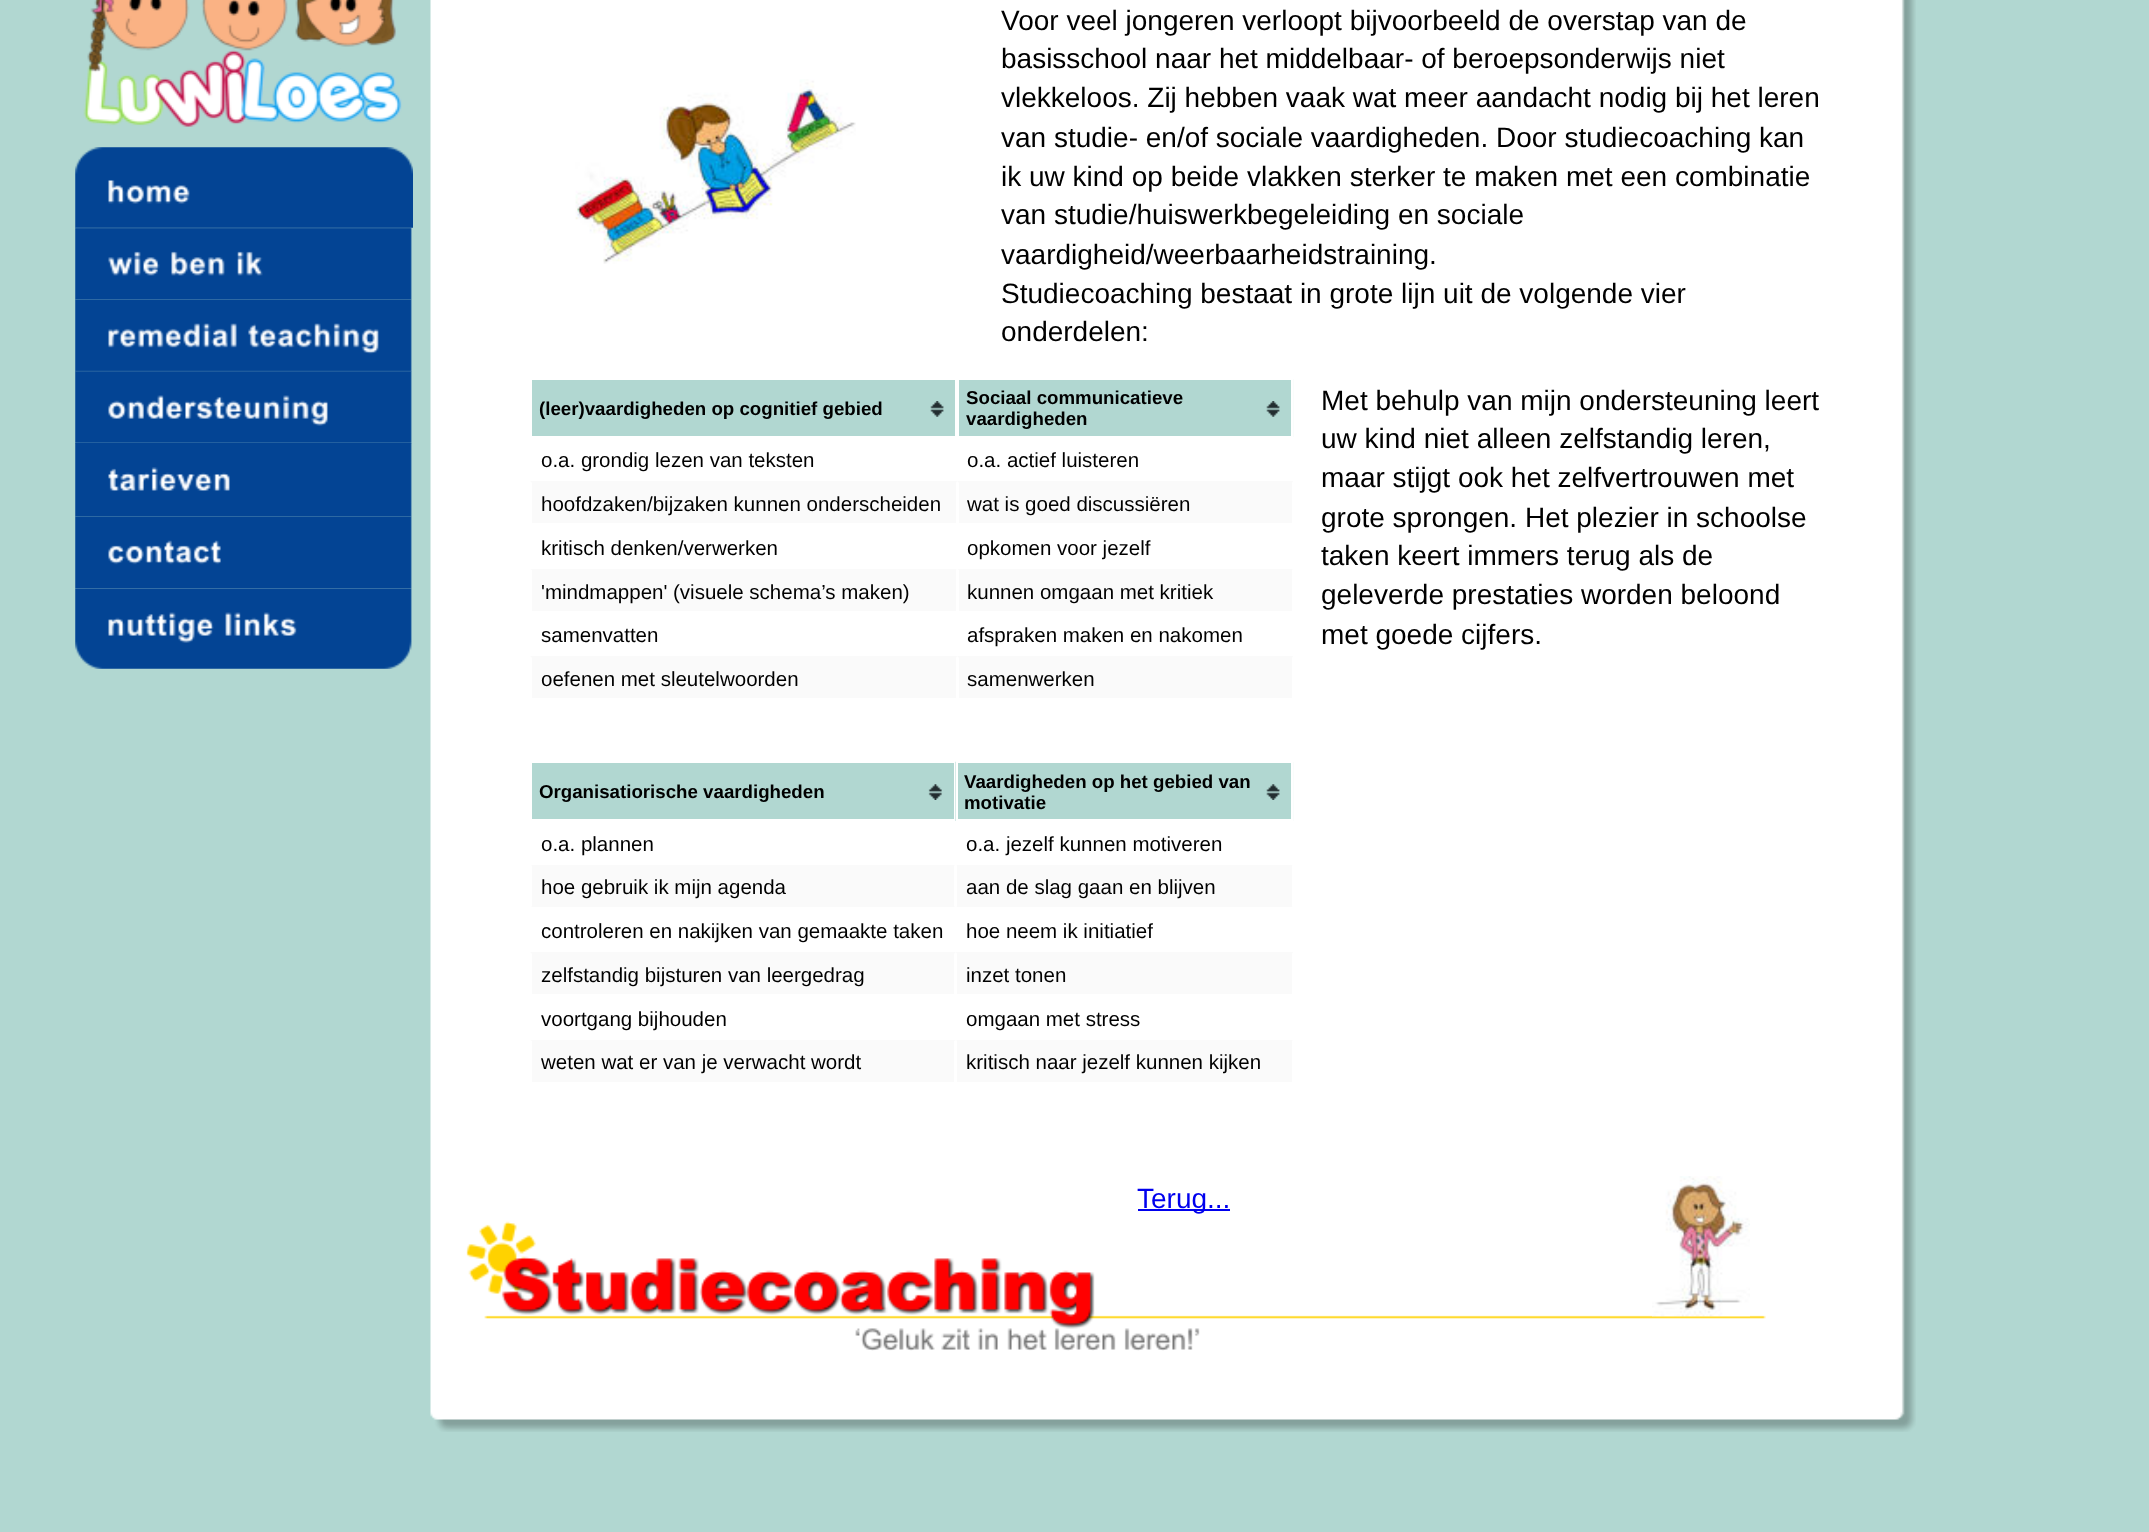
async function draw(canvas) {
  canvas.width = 2149
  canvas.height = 1532
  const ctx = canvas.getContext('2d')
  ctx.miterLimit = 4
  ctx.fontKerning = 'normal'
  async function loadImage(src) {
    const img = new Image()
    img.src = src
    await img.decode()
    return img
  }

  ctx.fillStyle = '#b1d7d1'
  ctx.fillRect(0, 0, 2149, 1532)
  ctx.drawImage(await loadImage('image0.png'), 83, 0, 319, 127)
  ctx.drawImage(await loadImage('image1.png'), 430, 0, 1486, 1432)
  ctx.drawImage(await loadImage('image2.png'), 575, 79, 281, 185)
  ctx.font = '28px Liberation Sans'
  ctx.fillStyle = '#000'
  ctx.fillText('Voor veel jongeren verloopt bijvoorbeeld de overstap van de', 1001, 30)
  ctx.fillText('basisschool naar het middelbaar- of beroepsonderwijs niet', 1001, 68)
  ctx.fillText('vlekkeloos. Zij hebben vaak wat meer aandacht nodig bij het leren', 1001, 107)
  ctx.fillText('van studie- en/of sociale vaardigheden. Door studiecoaching kan', 1001, 147)
  ctx.fillText('ik uw kind op beide vlakken sterker te maken met een combinatie', 1001, 186)
  ctx.fillText('van studie/huiswerkbegeleiding en sociale', 1001, 224)
  ctx.fillText('vaardigheid/weerbaarheidstraining.', 1001, 264)
  ctx.fillText('Studiecoaching bestaat in grote lijn uit de volgende vier', 1001, 303)
  ctx.fillText('onderdelen:', 1001, 341)
  ctx.fillStyle = '#b1d7d1'
  ctx.fillRect(532, 380, 734, 56)
  ctx.drawImage(await loadImage('image3.png'), 930, 401, 14, 16)
  ctx.strokeStyle = '#fff'
  ctx.lineWidth = 2
  ctx.strokeRect(531, 379, 425, 58)
  ctx.font = 'bold 18.7px Liberation Sans'
  ctx.fillStyle = '#000'
  ctx.fillText('(leer)vaardigheden op cognitief gebied', 539, 415)
  ctx.drawImage(await loadImage('image4.png'), 1266, 379, 28, 58)
  ctx.strokeRect(958, 379, 334, 58)
  ctx.fillText('Sociaal communicatieve', 966, 404)
  ctx.fillText('vaardigheden', 966, 425)
  ctx.font = '20.5px Liberation Sans'
  ctx.fillText('o.a. grondig lezen van teksten', 541, 467)
  ctx.fillText('o.a. actief luisteren', 967, 467)
  ctx.fillStyle = '#fafafa'
  ctx.fillRect(530, 481, 763, 42)
  ctx.fillStyle = '#fff'
  ctx.beginPath()
  ctx.moveTo(957, 481)
  ctx.lineTo(957, 525)
  ctx.lineTo(956, 523)
  ctx.lineTo(956, 483)
  ctx.closePath()
  ctx.fill()
  ctx.beginPath()
  ctx.moveTo(530, 525)
  ctx.lineTo(530, 481)
  ctx.lineTo(532, 483)
  ctx.lineTo(532, 523)
  ctx.closePath()
  ctx.fill()
  ctx.fillStyle = '#000'
  ctx.fillText('hoofdzaken/bijzaken kunnen onderscheiden', 541, 511)
  ctx.fillStyle = '#fff'
  ctx.beginPath()
  ctx.moveTo(1293, 481)
  ctx.lineTo(1293, 525)
  ctx.lineTo(1292, 523)
  ctx.lineTo(1292, 483)
  ctx.closePath()
  ctx.fill()
  ctx.beginPath()
  ctx.moveTo(957, 525)
  ctx.lineTo(957, 481)
  ctx.lineTo(959, 483)
  ctx.lineTo(959, 523)
  ctx.closePath()
  ctx.fill()
  ctx.fillStyle = '#000'
  ctx.fillText('wat is goed discussiëren', 967, 511)
  ctx.fillText('kritisch denken/verwerken', 541, 555)
  ctx.fillText('opkomen voor jezelf', 967, 555)
  ctx.fillStyle = '#fafafa'
  ctx.fillRect(530, 569, 763, 42)
  ctx.fillStyle = '#fff'
  ctx.beginPath()
  ctx.moveTo(957, 569)
  ctx.lineTo(957, 612)
  ctx.lineTo(956, 611)
  ctx.lineTo(956, 570)
  ctx.closePath()
  ctx.fill()
  ctx.beginPath()
  ctx.moveTo(530, 612)
  ctx.lineTo(530, 569)
  ctx.lineTo(532, 570)
  ctx.lineTo(532, 611)
  ctx.closePath()
  ctx.fill()
  ctx.fillStyle = '#000'
  ctx.fillText('\'mindmappen\' (visuele schema’s maken)', 541, 599)
  ctx.fillStyle = '#fff'
  ctx.beginPath()
  ctx.moveTo(1293, 569)
  ctx.lineTo(1293, 612)
  ctx.lineTo(1292, 611)
  ctx.lineTo(1292, 570)
  ctx.closePath()
  ctx.fill()
  ctx.beginPath()
  ctx.moveTo(957, 612)
  ctx.lineTo(957, 569)
  ctx.lineTo(959, 570)
  ctx.lineTo(959, 611)
  ctx.closePath()
  ctx.fill()
  ctx.fillStyle = '#000'
  ctx.fillText('kunnen omgaan met kritiek', 967, 599)
  ctx.fillText('samenvatten', 541, 642)
  ctx.fillText('afspraken maken en nakomen', 967, 642)
  ctx.fillStyle = '#fafafa'
  ctx.fillRect(530, 656, 763, 42)
  ctx.fillStyle = '#fff'
  ctx.beginPath()
  ctx.moveTo(957, 656)
  ctx.lineTo(957, 700)
  ctx.lineTo(956, 698)
  ctx.lineTo(956, 658)
  ctx.closePath()
  ctx.fill()
  ctx.beginPath()
  ctx.moveTo(530, 700)
  ctx.lineTo(530, 656)
  ctx.lineTo(532, 658)
  ctx.lineTo(532, 698)
  ctx.closePath()
  ctx.fill()
  ctx.fillStyle = '#000'
  ctx.fillText('oefenen met sleutelwoorden', 541, 686)
  ctx.fillStyle = '#fff'
  ctx.beginPath()
  ctx.moveTo(1293, 656)
  ctx.lineTo(1293, 700)
  ctx.lineTo(1292, 698)
  ctx.lineTo(1292, 658)
  ctx.closePath()
  ctx.fill()
  ctx.beginPath()
  ctx.moveTo(957, 700)
  ctx.lineTo(957, 656)
  ctx.lineTo(959, 658)
  ctx.lineTo(959, 698)
  ctx.closePath()
  ctx.fill()
  ctx.fillStyle = '#000'
  ctx.fillText('samenwerken', 967, 686)
  ctx.font = '28px Liberation Sans'
  ctx.fillText('Met behulp van mijn ondersteuning leert', 1321, 410)
  ctx.fillText('uw kind niet alleen zelfstandig leren,', 1321, 448)
  ctx.fillText('maar stijgt ook het zelfvertrouwen met', 1321, 487)
  ctx.fillText('grote sprongen. Het plezier in schoolse', 1321, 527)
  ctx.fillText('taken keert immers terug als de', 1321, 565)
  ctx.fillText('geleverde prestaties worden beloond', 1321, 604)
  ctx.fillText('met goede cijfers.', 1321, 644)
  ctx.fillStyle = '#b1d7d1'
  ctx.fillRect(532, 763, 422, 56)
  ctx.drawImage(await loadImage('image5.png'), 928, 784, 14, 16)
  ctx.font = 'bold 18.7px Liberation Sans'
  ctx.fillStyle = '#000'
  ctx.fillText('Organisatiorische vaardigheden', 539, 798)
  ctx.drawImage(await loadImage('image6.png'), 955, 761, 339, 60)
  ctx.strokeRect(957, 762, 335, 58)
  ctx.fillText('Vaardigheden op het gebied van', 964, 788)
  ctx.fillText('motivatie', 964, 809)
  ctx.font = '20.5px Liberation Sans'
  ctx.fillText('o.a. plannen', 541, 851)
  ctx.fillText('o.a. jezelf kunnen motiveren', 966, 851)
  ctx.fillStyle = '#fafafa'
  ctx.fillRect(531, 865, 762, 42)
  ctx.fillStyle = '#fff'
  ctx.beginPath()
  ctx.moveTo(956, 864)
  ctx.lineTo(956, 908)
  ctx.lineTo(954, 906)
  ctx.lineTo(954, 866)
  ctx.closePath()
  ctx.fill()
  ctx.beginPath()
  ctx.moveTo(530, 908)
  ctx.lineTo(530, 864)
  ctx.lineTo(532, 866)
  ctx.lineTo(532, 906)
  ctx.closePath()
  ctx.fill()
  ctx.fillStyle = '#000'
  ctx.fillText('hoe gebruik ik mijn agenda', 541, 894)
  ctx.fillStyle = '#fff'
  ctx.beginPath()
  ctx.moveTo(1293, 864)
  ctx.lineTo(1293, 908)
  ctx.lineTo(1292, 906)
  ctx.lineTo(1292, 866)
  ctx.closePath()
  ctx.fill()
  ctx.beginPath()
  ctx.moveTo(956, 908)
  ctx.lineTo(956, 864)
  ctx.lineTo(957, 866)
  ctx.lineTo(957, 906)
  ctx.closePath()
  ctx.fill()
  ctx.fillStyle = '#000'
  ctx.fillText('aan de slag gaan en blijven', 966, 894)
  ctx.fillText('controleren en nakijken van gemaakte taken', 541, 938)
  ctx.fillText('hoe neem ik initiatief', 966, 938)
  ctx.fillStyle = '#fafafa'
  ctx.fillRect(530, 952, 763, 42)
  ctx.fillStyle = '#fff'
  ctx.beginPath()
  ctx.moveTo(956, 952)
  ctx.lineTo(956, 996)
  ctx.lineTo(954, 994)
  ctx.lineTo(954, 954)
  ctx.closePath()
  ctx.fill()
  ctx.beginPath()
  ctx.moveTo(530, 996)
  ctx.lineTo(530, 952)
  ctx.lineTo(532, 954)
  ctx.lineTo(532, 994)
  ctx.closePath()
  ctx.fill()
  ctx.fillStyle = '#000'
  ctx.fillText('zelfstandig bijsturen van leergedrag', 541, 982)
  ctx.fillStyle = '#fff'
  ctx.beginPath()
  ctx.moveTo(1293, 952)
  ctx.lineTo(1293, 996)
  ctx.lineTo(1292, 994)
  ctx.lineTo(1292, 954)
  ctx.closePath()
  ctx.fill()
  ctx.beginPath()
  ctx.moveTo(956, 996)
  ctx.lineTo(956, 952)
  ctx.lineTo(957, 954)
  ctx.lineTo(957, 994)
  ctx.closePath()
  ctx.fill()
  ctx.fillStyle = '#000'
  ctx.fillText('inzet tonen', 966, 982)
  ctx.fillText('voortgang bijhouden', 541, 1026)
  ctx.fillText('omgaan met stress', 966, 1026)
  ctx.fillStyle = '#fafafa'
  ctx.fillRect(530, 1040, 763, 42)
  ctx.fillStyle = '#fff'
  ctx.beginPath()
  ctx.moveTo(956, 1040)
  ctx.lineTo(956, 1083)
  ctx.lineTo(954, 1082)
  ctx.lineTo(954, 1041)
  ctx.closePath()
  ctx.fill()
  ctx.beginPath()
  ctx.moveTo(530, 1083)
  ctx.lineTo(530, 1040)
  ctx.lineTo(532, 1041)
  ctx.lineTo(532, 1082)
  ctx.closePath()
  ctx.fill()
  ctx.fillStyle = '#000'
  ctx.fillText('weten wat er van je verwacht wordt', 541, 1069)
  ctx.fillStyle = '#fff'
  ctx.beginPath()
  ctx.moveTo(1293, 1040)
  ctx.lineTo(1293, 1083)
  ctx.lineTo(1292, 1082)
  ctx.lineTo(1292, 1041)
  ctx.closePath()
  ctx.fill()
  ctx.beginPath()
  ctx.moveTo(956, 1083)
  ctx.lineTo(956, 1040)
  ctx.lineTo(957, 1041)
  ctx.lineTo(957, 1082)
  ctx.closePath()
  ctx.fill()
  ctx.fillStyle = '#000'
  ctx.fillText('kritisch naar jezelf kunnen kijken', 966, 1069)
  ctx.drawImage(await loadImage('image8.png'), 466, 1221, 1300, 130)
  ctx.drawImage(await loadImage('image7.png'), 1652, 1176, 98, 141)
  ctx.drawImage(await loadImage('image9.png'), 75, 147, 338, 81)
  ctx.drawImage(await loadImage('image10.png'), 75, 227, 337, 73)
  ctx.drawImage(await loadImage('image11.png'), 75, 299, 337, 73)
  ctx.drawImage(await loadImage('image12.png'), 75, 371, 337, 73)
  ctx.drawImage(await loadImage('image13.png'), 75, 443, 337, 74)
  ctx.drawImage(await loadImage('image14.png'), 75, 516, 337, 73)
  ctx.drawImage(await loadImage('image15.png'), 75, 588, 337, 81)
  ctx.fillStyle = '#00e'
  ctx.fillRect(1138, 1209, 92, 2)
  ctx.font = '28px Liberation Sans'
  ctx.fillText('Terug...', 1137, 1208)
}

draw(document.querySelector('canvas'))
